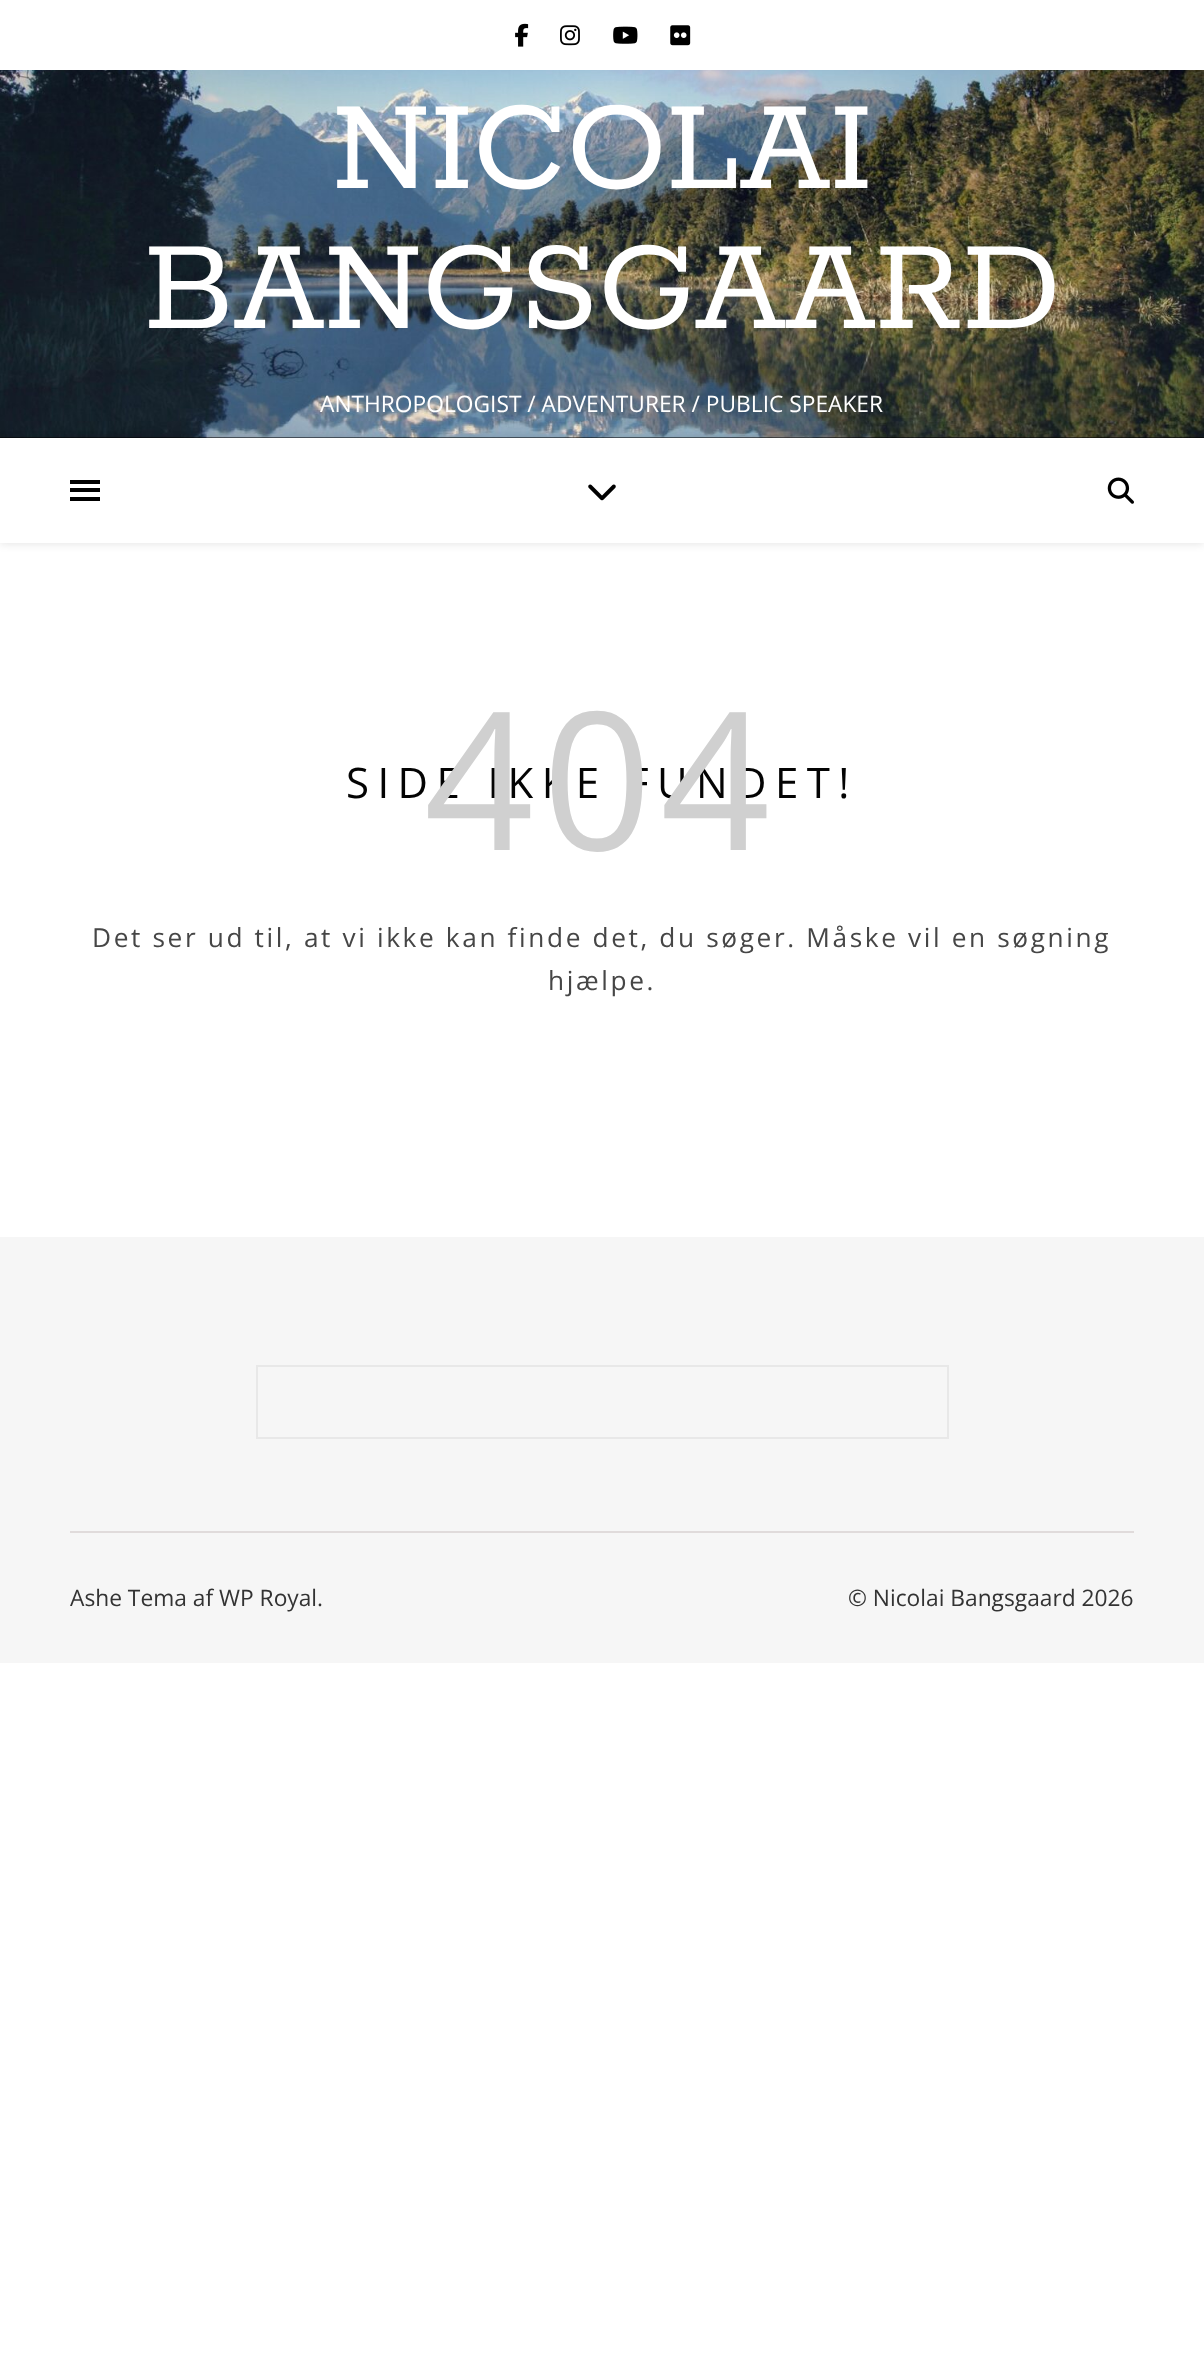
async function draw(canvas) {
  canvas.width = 1204
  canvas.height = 2357
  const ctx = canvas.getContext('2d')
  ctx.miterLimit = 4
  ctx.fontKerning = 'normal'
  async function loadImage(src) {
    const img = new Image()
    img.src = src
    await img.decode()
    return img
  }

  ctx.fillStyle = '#fff'
  ctx.fillRect(0, 0, 1204, 2357)
  ctx.drawImage(await loadImage('image0.png'), 515, 23, 14, 24)
  ctx.drawImage(await loadImage('image1.png'), 560, 25, 20, 21)
  ctx.drawImage(await loadImage('image2.png'), 613, 26, 25, 18)
  ctx.drawImage(await loadImage('image3.png'), 670, 25, 21, 21)
  ctx.fillStyle = '#000'
  ctx.fillRect(0, 437, 1204, 1)
  ctx.drawImage(await loadImage('image4.png'), 0, 70, 1204, 368)
  ctx.font = '600 140px Rokkitt'
  ctx.fillStyle = '#fff'
  ctx.fillText('NICOLAI', 332, 188)
  ctx.fillText('BANGSGAARD', 144, 328)
  ctx.font = '22.75px Open Sans'
  ctx.fillText('ANTHROPOLOGIST / ADVENTURER / PUBLIC SPEAKER', 320, 412)
  ctx.fillStyle = '#0000001a'
  ctx.filter = 'blur(4.5px)'
  ctx.beginPath()
  ctx.rect(0, 439, 1204, 105)
  ctx.fill()
  ctx.filter = 'none'
  ctx.fillStyle = '#fff'
  ctx.fillRect(0, 438, 1204, 105)
  ctx.fillStyle = '#000'
  ctx.fillRect(70, 480, 30, 4)
  ctx.fillRect(70, 488, 30, 4)
  ctx.fillRect(70, 497, 30, 4)
  ctx.drawImage(await loadImage('image5.png'), 588, 484, 28, 17)
  ctx.drawImage(await loadImage('image6.png'), 1107, 477, 27, 27)
  ctx.letterSpacing = '8.4px'
  ctx.font = '42px Open Sans'
  ctx.fillStyle = '#030303'
  ctx.fillText('SIDE IKKE FUNDET!', 346, 798)
  ctx.font = '192px Open Sans'
  ctx.fillStyle = '#d0d0d0'
  ctx.fillText('404', 424, 850)
  ctx.letterSpacing = '2.62px'
  ctx.font = '26.25px Open Sans'
  ctx.fillStyle = '#464646'
  ctx.fillText('Det ser ud til, at vi ikke kan finde det, du søger. Måske vil en søgning', 92, 947)
  ctx.fillText('hjælpe.', 548, 990)
  ctx.fillStyle = '#f6f6f6'
  ctx.fillRect(0, 1237, 1204, 426)
  ctx.fillStyle = '#e0dbdb'
  ctx.fillRect(70, 1531, 1064, 2)
  ctx.strokeStyle = '#e8e8e8'
  ctx.lineWidth = 2
  ctx.strokeRect(257, 1366, 691, 72)
  ctx.letterSpacing = '0px'
  ctx.font = '22.75px Open Sans'
  ctx.fillStyle = '#333'
  ctx.fillText('Ashe Tema af WP Royal.', 70, 1606)
  ctx.fillText('© Nicolai Bangsgaard 2026', 848, 1606)
}

draw(document.querySelector('canvas'))
